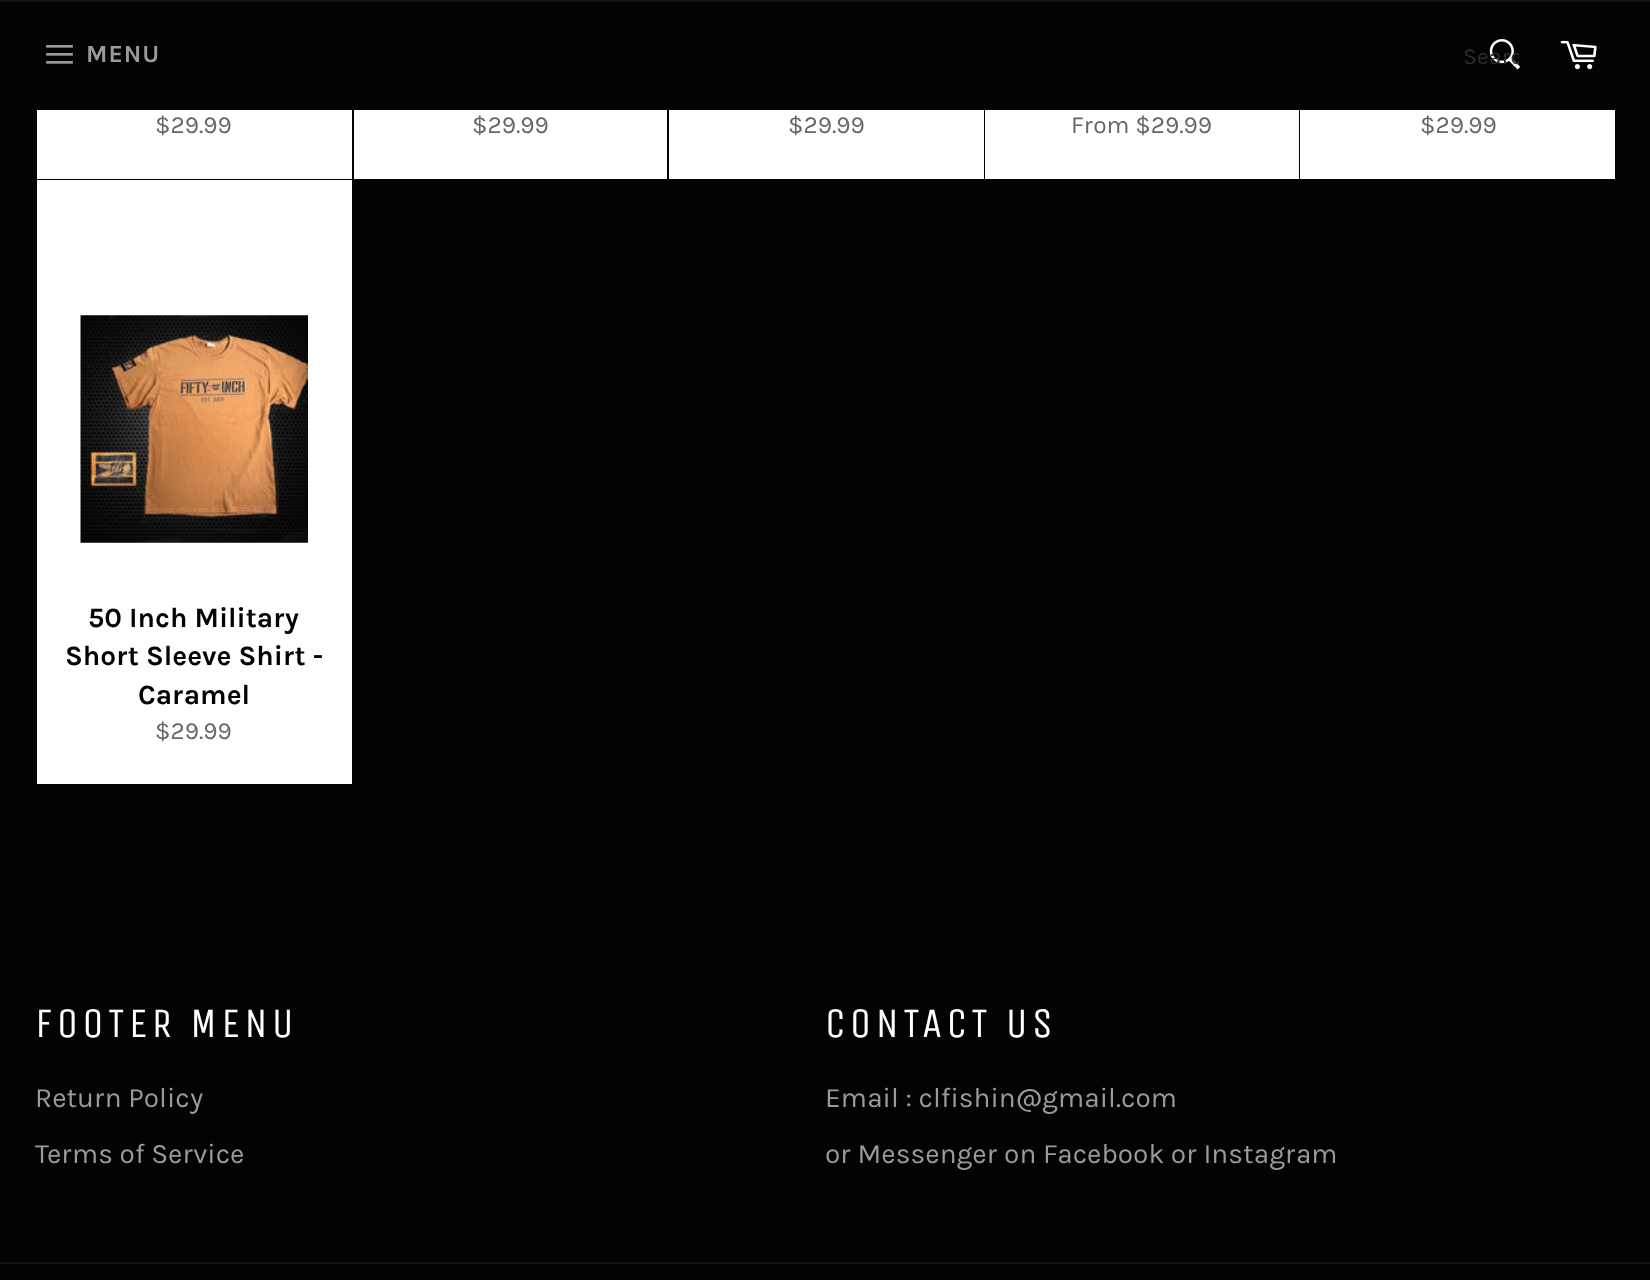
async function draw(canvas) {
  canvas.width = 1650
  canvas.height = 1280
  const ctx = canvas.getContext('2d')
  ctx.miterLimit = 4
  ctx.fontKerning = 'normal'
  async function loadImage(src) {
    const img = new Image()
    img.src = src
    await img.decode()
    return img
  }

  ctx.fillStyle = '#030303'
  ctx.fillRect(0, 0, 1650, 1280)
  ctx.fillStyle = '#101010'
  ctx.fillRect(0, 0, 1650, 2)
  ctx.drawImage(await loadImage('image0.png'), 46, 45, 27, 19)
  ctx.letterSpacing = '1px'
  ctx.font = 'bold 24.5px Karla'
  ctx.fillStyle = '#9a9a9a'
  ctx.fillText('MENU', 86, 62)
  ctx.drawImage(await loadImage('image1.png'), 1489, 39, 32, 31)
  ctx.save()
  ctx.beginPath()
  ctx.rect(1463, 44, 56, 26)
  ctx.clip()
  ctx.letterSpacing = '0px'
  ctx.font = '23px Karla'
  ctx.fillStyle = '#2d2d2d'
  ctx.fillText('Searc', 1463, 64)
  ctx.restore()
  ctx.drawImage(await loadImage('image2.png'), 1560, 40, 37, 30)
  ctx.fillStyle = '#fff'
  ctx.fillRect(37, 110, 315, 69)
  ctx.letterSpacing = '0px'
  ctx.font = '24.5px Karla'
  ctx.fillStyle = '#666'
  ctx.fillText('$29.99', 155, 133)
  ctx.fillStyle = '#fff'
  ctx.fillRect(354, 110, 313, 69)
  ctx.fillStyle = '#666'
  ctx.fillText('$29.99', 472, 133)
  ctx.fillStyle = '#fff'
  ctx.fillRect(669, 110, 315, 69)
  ctx.fillStyle = '#666'
  ctx.fillText('$29.99', 788, 133)
  ctx.fillStyle = '#fff'
  ctx.fillRect(985, 110, 314, 69)
  ctx.fillStyle = '#666'
  ctx.fillText('From $29.99', 1071, 133)
  ctx.fillStyle = '#fff'
  ctx.fillRect(1300, 110, 315, 69)
  ctx.fillStyle = '#666'
  ctx.fillText('$29.99', 1420, 133)
  ctx.fillStyle = '#fff'
  ctx.fillRect(37, 180, 315, 604)
  ctx.drawImage(await loadImage('image3.png'), 80, 315, 228, 228)
  ctx.font = 'bold 28px Karla'
  ctx.fillStyle = '#030303'
  ctx.fillText('50 Inch Military', 88, 627)
  ctx.fillText('Short Sleeve Shirt -', 65, 665)
  ctx.fillText('Caramel', 138, 704)
  ctx.font = '24.5px Karla'
  ctx.fillStyle = '#666'
  ctx.fillText('$29.99', 155, 739)
  ctx.letterSpacing = '4.25px'
  ctx.font = '42px Unica One'
  ctx.fillStyle = '#fff'
  ctx.fillText('FOOTER MENU', 35, 1037)
  ctx.letterSpacing = '0px'
  ctx.font = '28px Karla'
  ctx.fillStyle = '#9a9a9a'
  ctx.fillText('Return Policy', 35, 1107)
  ctx.fillText('Terms of Service', 35, 1163)
  ctx.letterSpacing = '4.25px'
  ctx.font = '42px Unica One'
  ctx.fillStyle = '#fff'
  ctx.fillText('CONTACT US', 825, 1037)
  ctx.letterSpacing = '0px'
  ctx.font = '28px Karla'
  ctx.fillStyle = '#9a9a9a'
  ctx.fillText('Email : clfishin@gmail.com', 825, 1107)
  ctx.fillText('or Messenger on Facebook or Instagram', 825, 1163)
  ctx.fillStyle = '#101010'
  ctx.fillRect(0, 1262, 1650, 2)
}

draw(document.querySelector('canvas'))
